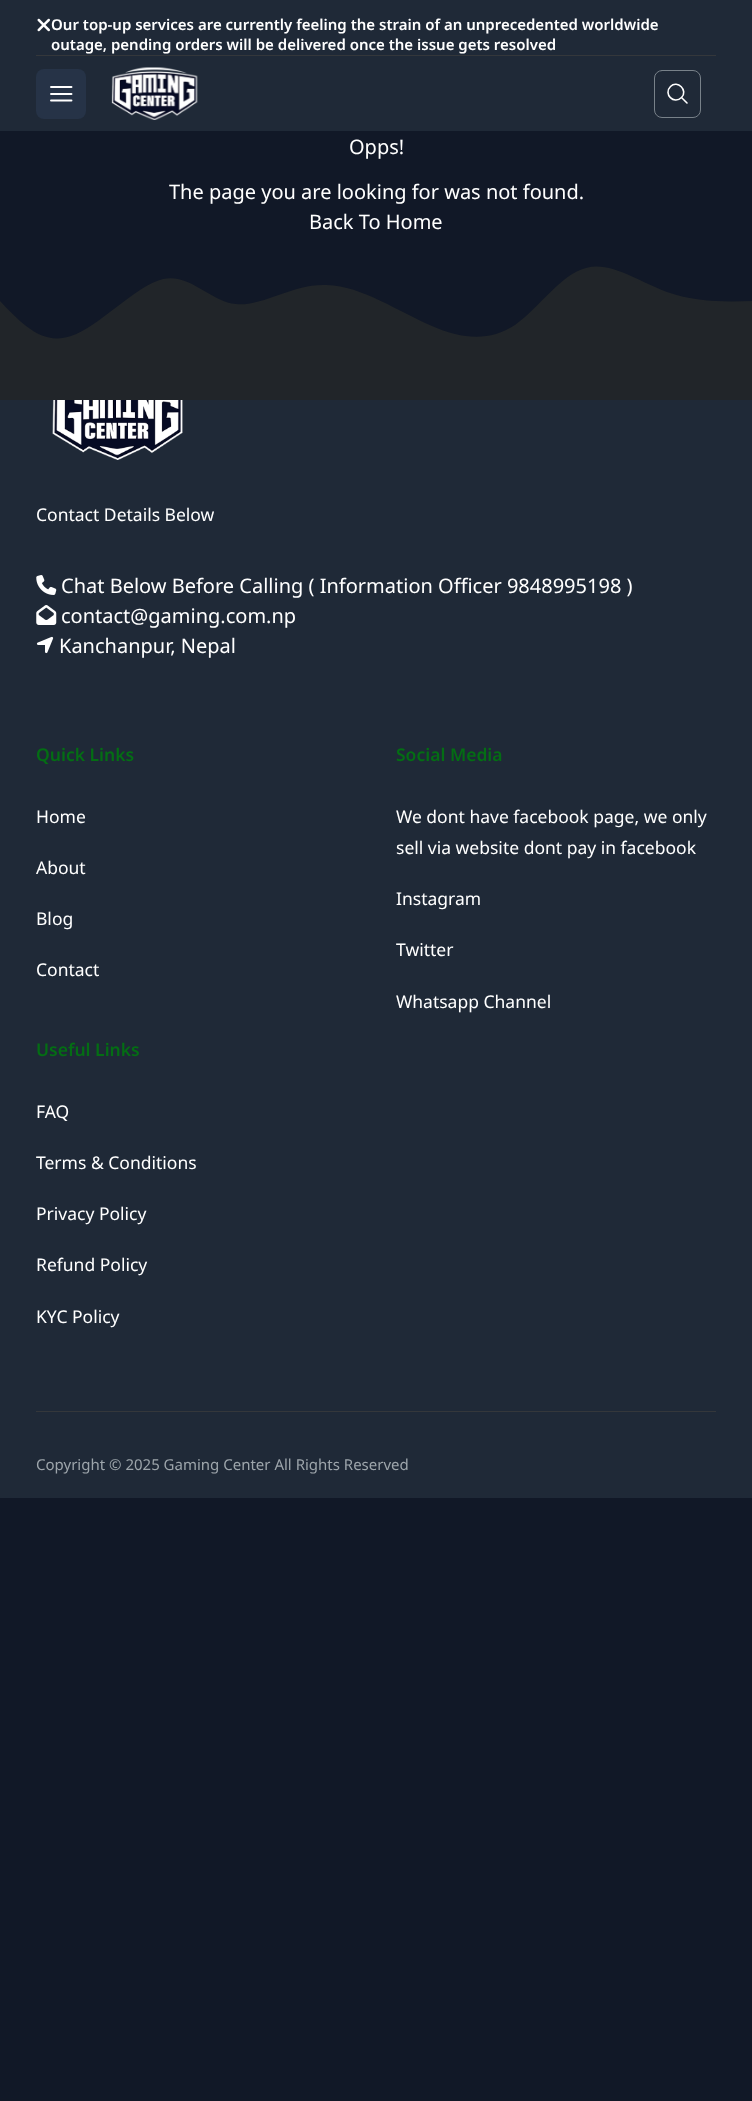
async function draw(canvas) {
  canvas.width = 752
  canvas.height = 2101
  const ctx = canvas.getContext('2d')
  ctx.miterLimit = 4
  ctx.fontKerning = 'normal'
  async function loadImage(src) {
    const img = new Image()
    img.src = src
    await img.decode()
    return img
  }

  ctx.fillStyle = '#111827'
  ctx.fillRect(0, 0, 752, 2101)
  ctx.fillStyle = '#1f2937'
  ctx.fillRect(0, 0, 752, 131)
  ctx.fillStyle = '#34373b'
  ctx.fillRect(36, 55, 680, 1)
  ctx.drawImage(await loadImage('image0.png'), 37, 18, 13, 14)
  ctx.font = '600 15px Noto Sans'
  ctx.fillStyle = '#fff'
  ctx.fillText('Our top-up services are currently feeling the strain of an unprecedented worldwide', 51, 30)
  ctx.fillText('outage, pending orders will be delivered once the issue gets resolved', 51, 50)
  ctx.fillStyle = '#263347'
  ctx.beginPath()
  ctx.roundRect(36, 69, 50, 50, 8)
  ctx.fill()
  ctx.beginPath()
  ctx.moveTo(51, 87)
  ctx.lineTo(71.5, 87)
  ctx.moveTo(51, 94)
  ctx.lineTo(71.5, 94)
  ctx.moveTo(51, 100.5)
  ctx.lineTo(71.5, 100.5)
  ctx.strokeStyle = '#fff'
  ctx.lineWidth = 1.9
  ctx.lineCap = 'round'
  ctx.lineJoin = 'round'
  ctx.stroke()
  ctx.drawImage(await loadImage('image1.png'), 111, 67, 87, 53)
  ctx.beginPath()
  ctx.roundRect(654.5, 70.5, 46, 47, 7.5)
  ctx.strokeStyle = '#788189'
  ctx.lineWidth = 1
  ctx.lineJoin = 'miter'
  ctx.stroke()
  ctx.beginPath()
  ctx.moveTo(687, 103)
  ctx.lineTo(681.5, 97.5)
  ctx.moveTo(681.5, 97.5)
  ctx.bezierCurveTo(688.5, 90.5, 677.5, 79.5, 670.5, 86.5)
  ctx.bezierCurveTo(663, 94, 674, 105, 681.5, 97.5)
  ctx.closePath()
  ctx.strokeStyle = '#fff'
  ctx.lineWidth = 1.6
  ctx.lineJoin = 'round'
  ctx.stroke()
  ctx.font = '20px Noto Sans'
  ctx.fillStyle = '#fff'
  ctx.fillText('Opps!', 349, 154)
  ctx.fillText('The page you are looking for was not found.', 169, 199)
  ctx.fillText('Back To Home', 309, 229)
  ctx.save()
  ctx.beginPath()
  ctx.rect(0, 196, 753, 204)
  ctx.clip()
  ctx.fillStyle = '#212529'
  ctx.beginPath()
  ctx.moveTo(0, 405)
  ctx.lineTo(0, 301)
  ctx.bezierCurveTo(21, 323, 42, 346, 71, 336)
  ctx.bezierCurveTo(99, 327, 135, 286, 163, 279)
  ctx.bezierCurveTo(190, 273, 211, 302, 236, 304)
  ctx.bezierCurveTo(262, 307, 293, 283, 327, 285)
  ctx.bezierCurveTo(362, 286, 399, 312, 432, 326)
  ctx.bezierCurveTo(464, 340, 490, 341, 515, 325)
  ctx.bezierCurveTo(539, 308, 561, 274, 586, 268)
  ctx.bezierCurveTo(611, 261, 639, 282, 667, 292)
  ctx.bezierCurveTo(695, 302, 724, 302, 752, 301)
  ctx.lineTo(752, 405)
  ctx.closePath()
  ctx.fill()
  ctx.restore()
  ctx.fillStyle = '#1f2937'
  ctx.fillRect(0, 400, 752, 1098)
  ctx.drawImage(await loadImage('image2.png'), 52, 400, 131, 60)
  ctx.font = '17.5px Noto Sans'
  ctx.fillStyle = '#fff'
  ctx.fillText('Contact Details Below', 36, 521)
  ctx.drawImage(await loadImage('image3.png'), 36, 575, 21, 20)
  ctx.font = '20px Noto Sans'
  ctx.fillText('Chat Below Before Calling ( Information Officer 9848995198 )', 61, 593)
  ctx.drawImage(await loadImage('image4.png'), 36, 605, 21, 20)
  ctx.fillText('contact@gaming.com.np', 61, 623)
  ctx.drawImage(await loadImage('image5.png'), 36, 636, 18, 18)
  ctx.fillText('Kanchanpur, Nepal', 59, 653)
  ctx.font = '600 17.5px Noto Sans'
  ctx.fillStyle = '#046d14'
  ctx.fillText('Quick Links', 36, 761)
  ctx.font = '17.5px Noto Sans'
  ctx.fillStyle = '#fff'
  ctx.fillText('Home', 36, 823)
  ctx.fillText('About', 36, 874)
  ctx.fillText('Blog', 36, 925)
  ctx.fillText('Contact', 36, 976)
  ctx.font = '600 17.5px Noto Sans'
  ctx.fillStyle = '#046d14'
  ctx.fillText('Useful Links', 36, 1056)
  ctx.font = '17.5px Noto Sans'
  ctx.fillStyle = '#fff'
  ctx.fillText('FAQ', 36, 1118)
  ctx.fillText('Terms & Conditions', 36, 1169)
  ctx.fillText('Privacy Policy', 36, 1220)
  ctx.fillText('Refund Policy', 36, 1271)
  ctx.fillText('KYC Policy', 36, 1323)
  ctx.font = '600 17.5px Noto Sans'
  ctx.fillStyle = '#046d14'
  ctx.fillText('Social Media', 396, 761)
  ctx.font = '17.5px Noto Sans'
  ctx.fillStyle = '#fff'
  ctx.fillText('We dont have facebook page, we only', 396, 823)
  ctx.fillText('sell via website dont pay in facebook', 396, 854)
  ctx.fillText('Instagram', 396, 905)
  ctx.fillText('Twitter', 396, 956)
  ctx.fillText('Whatsapp Channel', 396, 1008)
  ctx.fillStyle = '#34373b'
  ctx.fillRect(36, 1411, 680, 1)
  ctx.font = '15px Noto Sans'
  ctx.fillStyle = '#9da5ab'
  ctx.fillText('Copyright © 2025 Gaming Center All Rights Reserved', 36, 1470)
}

draw(document.querySelector('canvas'))
